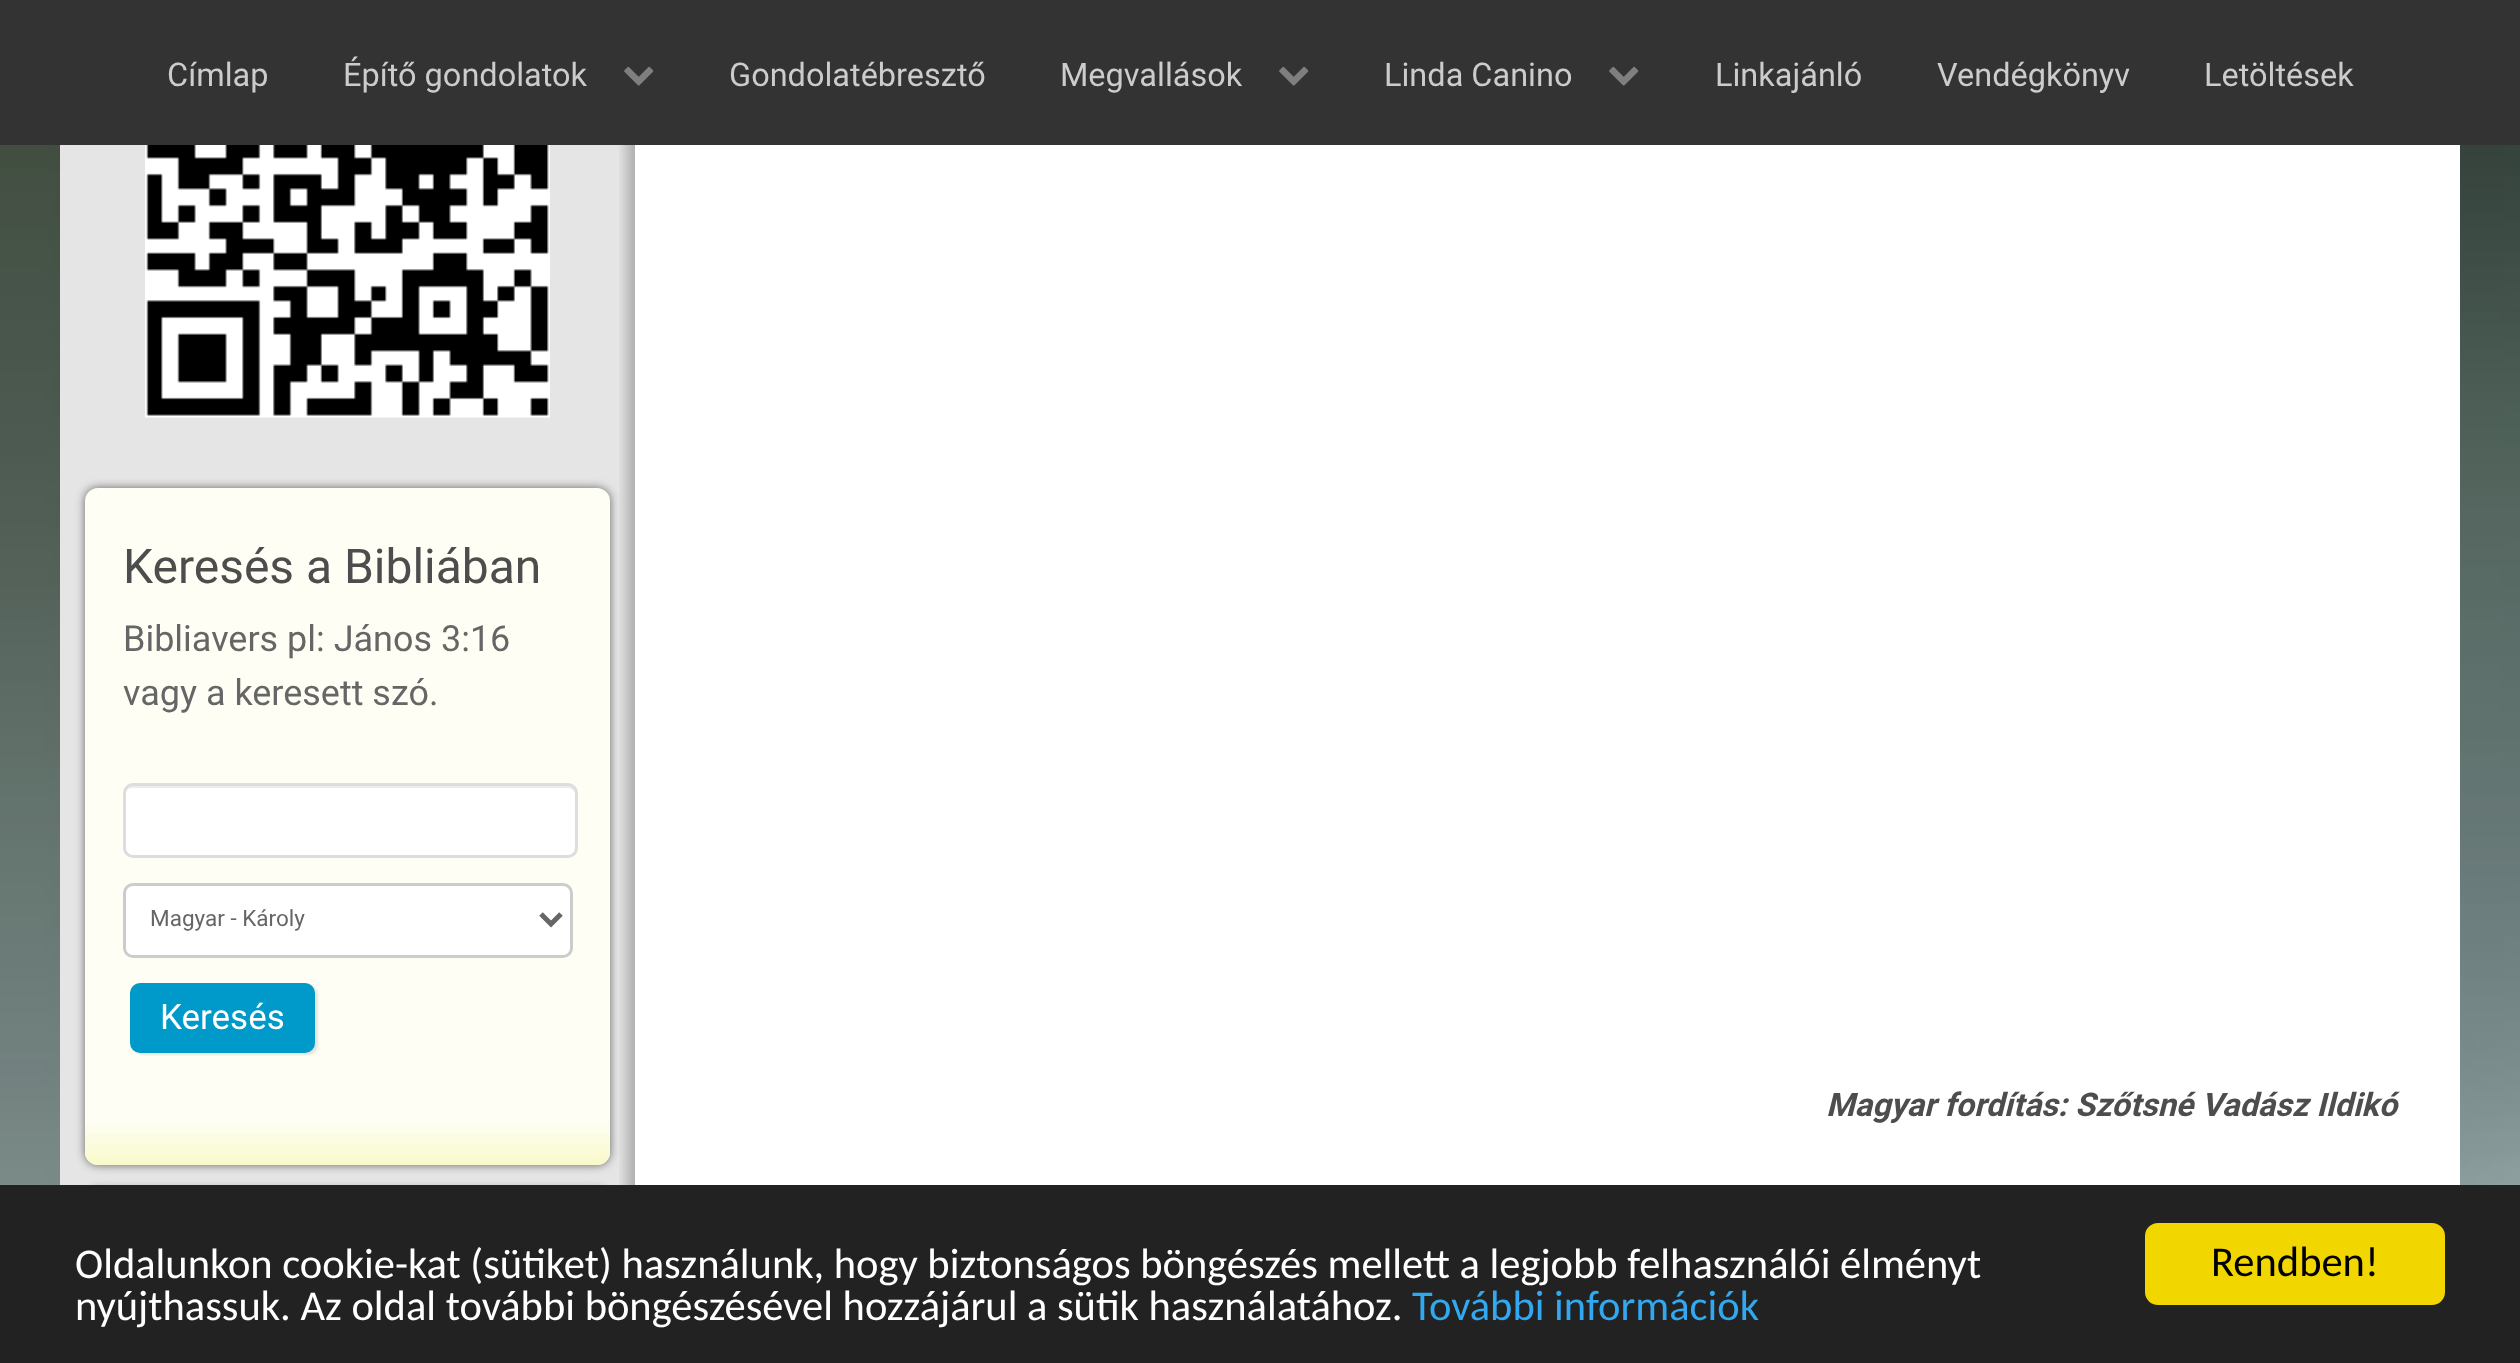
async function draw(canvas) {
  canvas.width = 2520
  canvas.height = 1363
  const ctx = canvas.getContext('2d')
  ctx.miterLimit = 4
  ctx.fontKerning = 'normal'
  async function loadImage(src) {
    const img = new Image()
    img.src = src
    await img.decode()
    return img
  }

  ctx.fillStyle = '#fff'
  ctx.fillRect(0, 0, 2520, 1363)
  ctx.drawImage(await loadImage('image0.png'), 0, 145, 2520, 1040)
  ctx.fillStyle = '#333'
  ctx.fillRect(0, 0, 2520, 145)
  ctx.font = '32.5px Roboto'
  ctx.fillStyle = '#ccc'
  ctx.fillText('Címlap', 167, 86)
  ctx.fillText('Építő gondolatok', 343, 86)
  ctx.drawImage(await loadImage('image1.png'), 624, 66, 30, 20)
  ctx.fillText('Gondolatébresztő', 729, 86)
  ctx.fillText('Megvallások', 1060, 86)
  ctx.drawImage(await loadImage('image1.png'), 1279, 66, 30, 20)
  ctx.fillText('Linda Canino', 1384, 86)
  ctx.drawImage(await loadImage('image1.png'), 1609, 66, 30, 20)
  ctx.fillText('Linkajánló', 1715, 86)
  ctx.fillText('Vendégkönyv', 1937, 86)
  ctx.fillText('Letöltések', 2204, 86)
  ctx.fillStyle = '#e5e5e5'
  ctx.fillRect(60, 145, 559, 1040)
  ctx.drawImage(await loadImage('image2.png'), 619, 145, 16, 1040)
  ctx.drawImage(await loadImage('image3.png'), 145, 145, 405, 273)
  ctx.fillStyle = '#666'
  ctx.filter = 'blur(5px)'
  ctx.beginPath()
  ctx.roundRect(85, 488, 525, 677, 13)
  ctx.fill()
  ctx.filter = 'none'
  ctx.fillStyle = '#fefef5'
  ctx.beginPath()
  ctx.roundRect(85, 488, 525, 677, 13)
  ctx.fill()
  ctx.drawImage(await loadImage('image4.png'), 85, 1123, 525, 42)
  ctx.font = '48px Roboto'
  ctx.fillStyle = '#4d4d4d'
  ctx.fillText('Keresés a Bibliában', 123, 583)
  ctx.font = '36px Roboto'
  ctx.fillStyle = '#666'
  ctx.fillText('Bibliavers pl: János 3:16', 123, 651)
  ctx.fillText('vagy a keresett szó.', 123, 705)
  ctx.fillStyle = '#fff'
  ctx.beginPath()
  ctx.roundRect(123, 783, 455, 75, 10)
  ctx.fill()
  ctx.fillStyle = '#ececec'
  ctx.beginPath()
  ctx.moveTo(132, 788)
  ctx.lineTo(568, 788)
  ctx.bezierCurveTo(572, 788, 575, 791, 575, 795)
  ctx.bezierCurveTo(575, 790, 573, 785, 567, 785)
  ctx.lineTo(133, 785)
  ctx.bezierCurveTo(127, 785, 125, 790, 125, 795)
  ctx.bezierCurveTo(125, 791, 128, 788, 132, 788)
  ctx.closePath()
  ctx.fill()
  ctx.beginPath()
  ctx.roundRect(124.5, 784.5, 452, 72, 8.5)
  ctx.strokeStyle = '#ddd'
  ctx.lineWidth = 3
  ctx.stroke()
  ctx.fillStyle = '#fff'
  ctx.beginPath()
  ctx.roundRect(124.5, 884.5, 447, 72, 8.5)
  ctx.fill()
  ctx.strokeStyle = '#ccc'
  ctx.stroke()
  ctx.beginPath()
  ctx.moveTo(541, 914)
  ctx.lineTo(551, 924)
  ctx.lineTo(561, 914)
  ctx.strokeStyle = '#666'
  ctx.lineWidth = 5
  ctx.stroke()
  ctx.font = '22.5px Roboto'
  ctx.fillStyle = '#666'
  ctx.fillText('Magyar - Károly', 150, 926)
  ctx.fillStyle = '#0000001a'
  ctx.filter = 'blur(1px)'
  ctx.beginPath()
  ctx.roundRect(133, 985, 185, 70, 10)
  ctx.fill()
  ctx.filter = 'none'
  ctx.fillStyle = '#009aca'
  ctx.beginPath()
  ctx.roundRect(130, 983, 185, 70, 10)
  ctx.fill()
  ctx.font = '35px Roboto'
  ctx.fillStyle = '#fff'
  ctx.fillText('Keresés', 160, 1029)
  ctx.fillStyle = '#666'
  ctx.filter = 'blur(5px)'
  ctx.beginPath()
  ctx.roundRect(85, 1190, 525, 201, 13)
  ctx.fill()
  ctx.filter = 'none'
  ctx.fillStyle = '#fff'
  ctx.fillRect(635, 145, 1825, 1040)
  ctx.font = 'italic bold 32.5px Roboto'
  ctx.fillStyle = '#4d4d4d'
  ctx.fillText('Magyar fordítás: Szőtsné Vadász Ildikó', 1826, 1116)
  ctx.fillStyle = '#222'
  ctx.fillRect(0, 1185, 2520, 178)
  ctx.font = '42.5px Carlito'
  ctx.fillStyle = '#fff'
  ctx.fillText('Oldalunkon cookie-kat (sütiket) használunk, hogy biztonságos böngészés mellett a legjobb felhasználói élményt', 75, 1278)
  ctx.fillText('nyújthassuk. Az oldal további böngészésével hozzájárul a sütik használatához.', 75, 1320)
  ctx.fillStyle = '#31a8f0'
  ctx.fillText('További információk', 1412, 1320)
  ctx.fillStyle = '#f1d600'
  ctx.beginPath()
  ctx.roundRect(2145, 1223, 300, 82, 13)
  ctx.fill()
  ctx.fillStyle = '#000'
  ctx.fillText('Rendben!', 2211, 1276)
}

draw(document.querySelector('canvas'))
